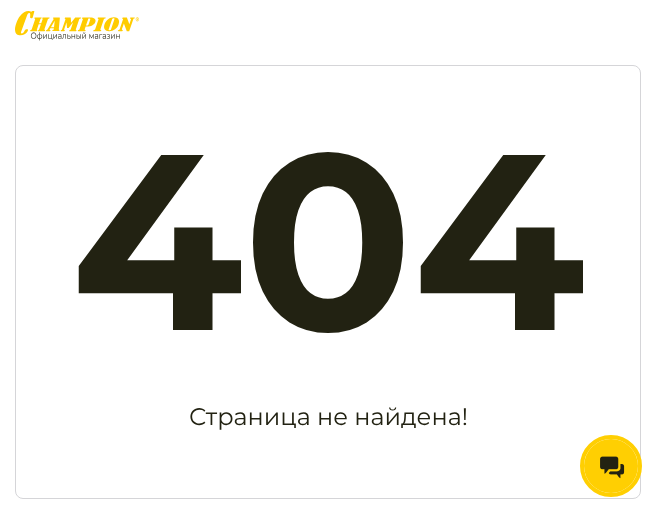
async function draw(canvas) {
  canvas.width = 656
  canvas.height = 511
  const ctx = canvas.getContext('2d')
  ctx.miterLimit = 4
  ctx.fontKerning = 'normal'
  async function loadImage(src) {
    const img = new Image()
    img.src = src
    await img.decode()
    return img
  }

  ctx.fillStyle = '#fff'
  ctx.fillRect(0, 0, 656, 511)
  ctx.drawImage(await loadImage('image0.png'), 15, 11, 124, 30)
  ctx.beginPath()
  ctx.roundRect(15.5, 65.5, 625, 433, 7.5)
  ctx.strokeStyle = '#d5d5d8'
  ctx.stroke()
  ctx.font = 'bold 250px Montserrat'
  ctx.fillStyle = '#222212'
  ctx.fillText('404', 71, 330)
  ctx.font = '24px Montserrat'
  ctx.fillText('Страница не найдена!', 189, 425)
  ctx.beginPath()
  ctx.arc(611, 466, 29, 0, 2 * Math.PI)
  ctx.strokeStyle = '#ffcf02'
  ctx.lineWidth = 4
  ctx.stroke()
  ctx.fillStyle = '#ffcf02'
  ctx.beginPath()
  ctx.arc(611, 466, 27, 0, 2 * Math.PI)
  ctx.fill()
  ctx.drawImage(await loadImage('image1.png'), 600, 456, 25, 23)
}

draw(document.querySelector('canvas'))
